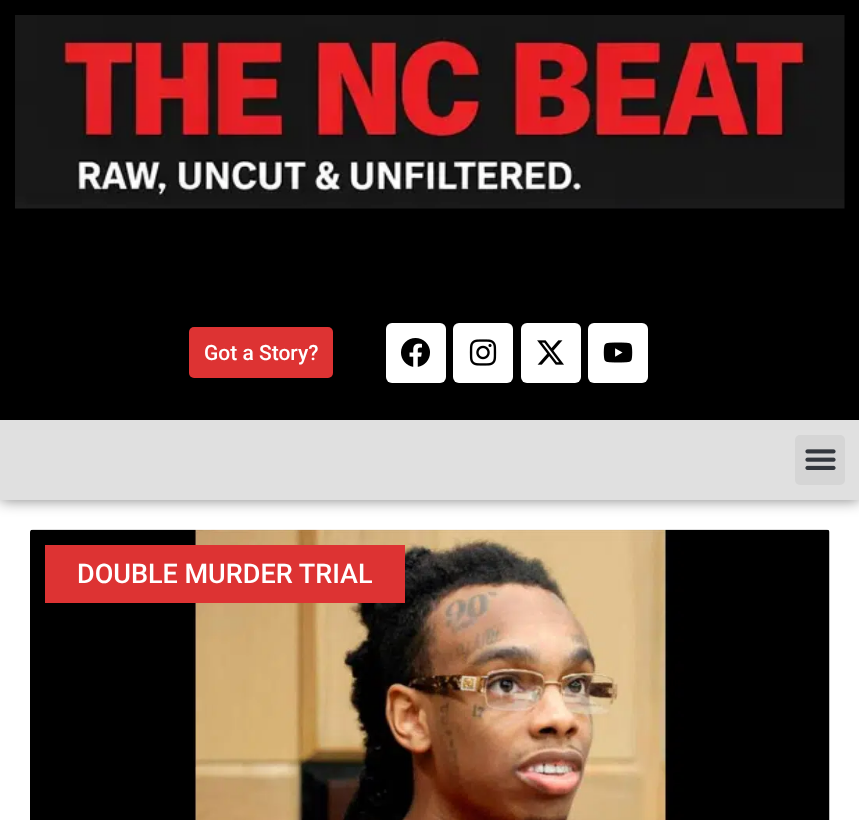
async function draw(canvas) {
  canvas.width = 859
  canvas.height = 820
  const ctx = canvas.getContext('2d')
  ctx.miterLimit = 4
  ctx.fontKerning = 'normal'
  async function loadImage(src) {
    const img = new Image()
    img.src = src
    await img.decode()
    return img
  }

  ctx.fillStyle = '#fff'
  ctx.fillRect(0, 0, 859, 820)
  ctx.fillStyle = '#000'
  ctx.fillRect(0, 0, 859, 420)
  ctx.drawImage(await loadImage('image0.png'), 15, 15, 830, 194)
  ctx.fillStyle = '#d33'
  ctx.beginPath()
  ctx.roundRect(189, 327, 144, 51, 5)
  ctx.fill()
  ctx.font = '500 21px Roboto'
  ctx.fillStyle = '#fff'
  ctx.fillText('Got a Story?', 204, 360)
  ctx.beginPath()
  ctx.roundRect(386, 323, 60, 60, 6)
  ctx.fill()
  ctx.drawImage(await loadImage('image1.png'), 401, 338, 29, 29)
  ctx.beginPath()
  ctx.roundRect(453, 323, 60, 60, 6)
  ctx.fill()
  ctx.drawImage(await loadImage('image2.png'), 469, 339, 28, 27)
  ctx.beginPath()
  ctx.roundRect(521, 323, 60, 60, 6)
  ctx.fill()
  ctx.drawImage(await loadImage('image3.png'), 537, 340, 27, 25)
  ctx.beginPath()
  ctx.roundRect(588, 323, 60, 60, 6)
  ctx.fill()
  ctx.drawImage(await loadImage('image4.png'), 603, 342, 30, 21)
  ctx.fillStyle = '#00000080'
  ctx.filter = 'blur(7.5px)'
  ctx.beginPath()
  ctx.rect(0, 420, 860, 80)
  ctx.fill()
  ctx.filter = 'none'
  ctx.fillStyle = '#e0e0e0'
  ctx.fillRect(0, 420, 859, 80)
  ctx.fillStyle = '#d5d5d5'
  ctx.beginPath()
  ctx.roundRect(795, 435, 50, 50, 5)
  ctx.fill()
  ctx.drawImage(await loadImage('image5.png'), 805, 449, 31, 21)
  ctx.drawImage(await loadImage('image6.png'), 30, 529, 800, 291)
  ctx.fillStyle = '#d33'
  ctx.fillRect(45, 545, 360, 58)
  ctx.font = '500 27px Roboto'
  ctx.fillStyle = '#fff'
  ctx.fillText('DOUBLE MURDER TRIAL', 77, 583)
}

draw(document.querySelector('canvas'))
